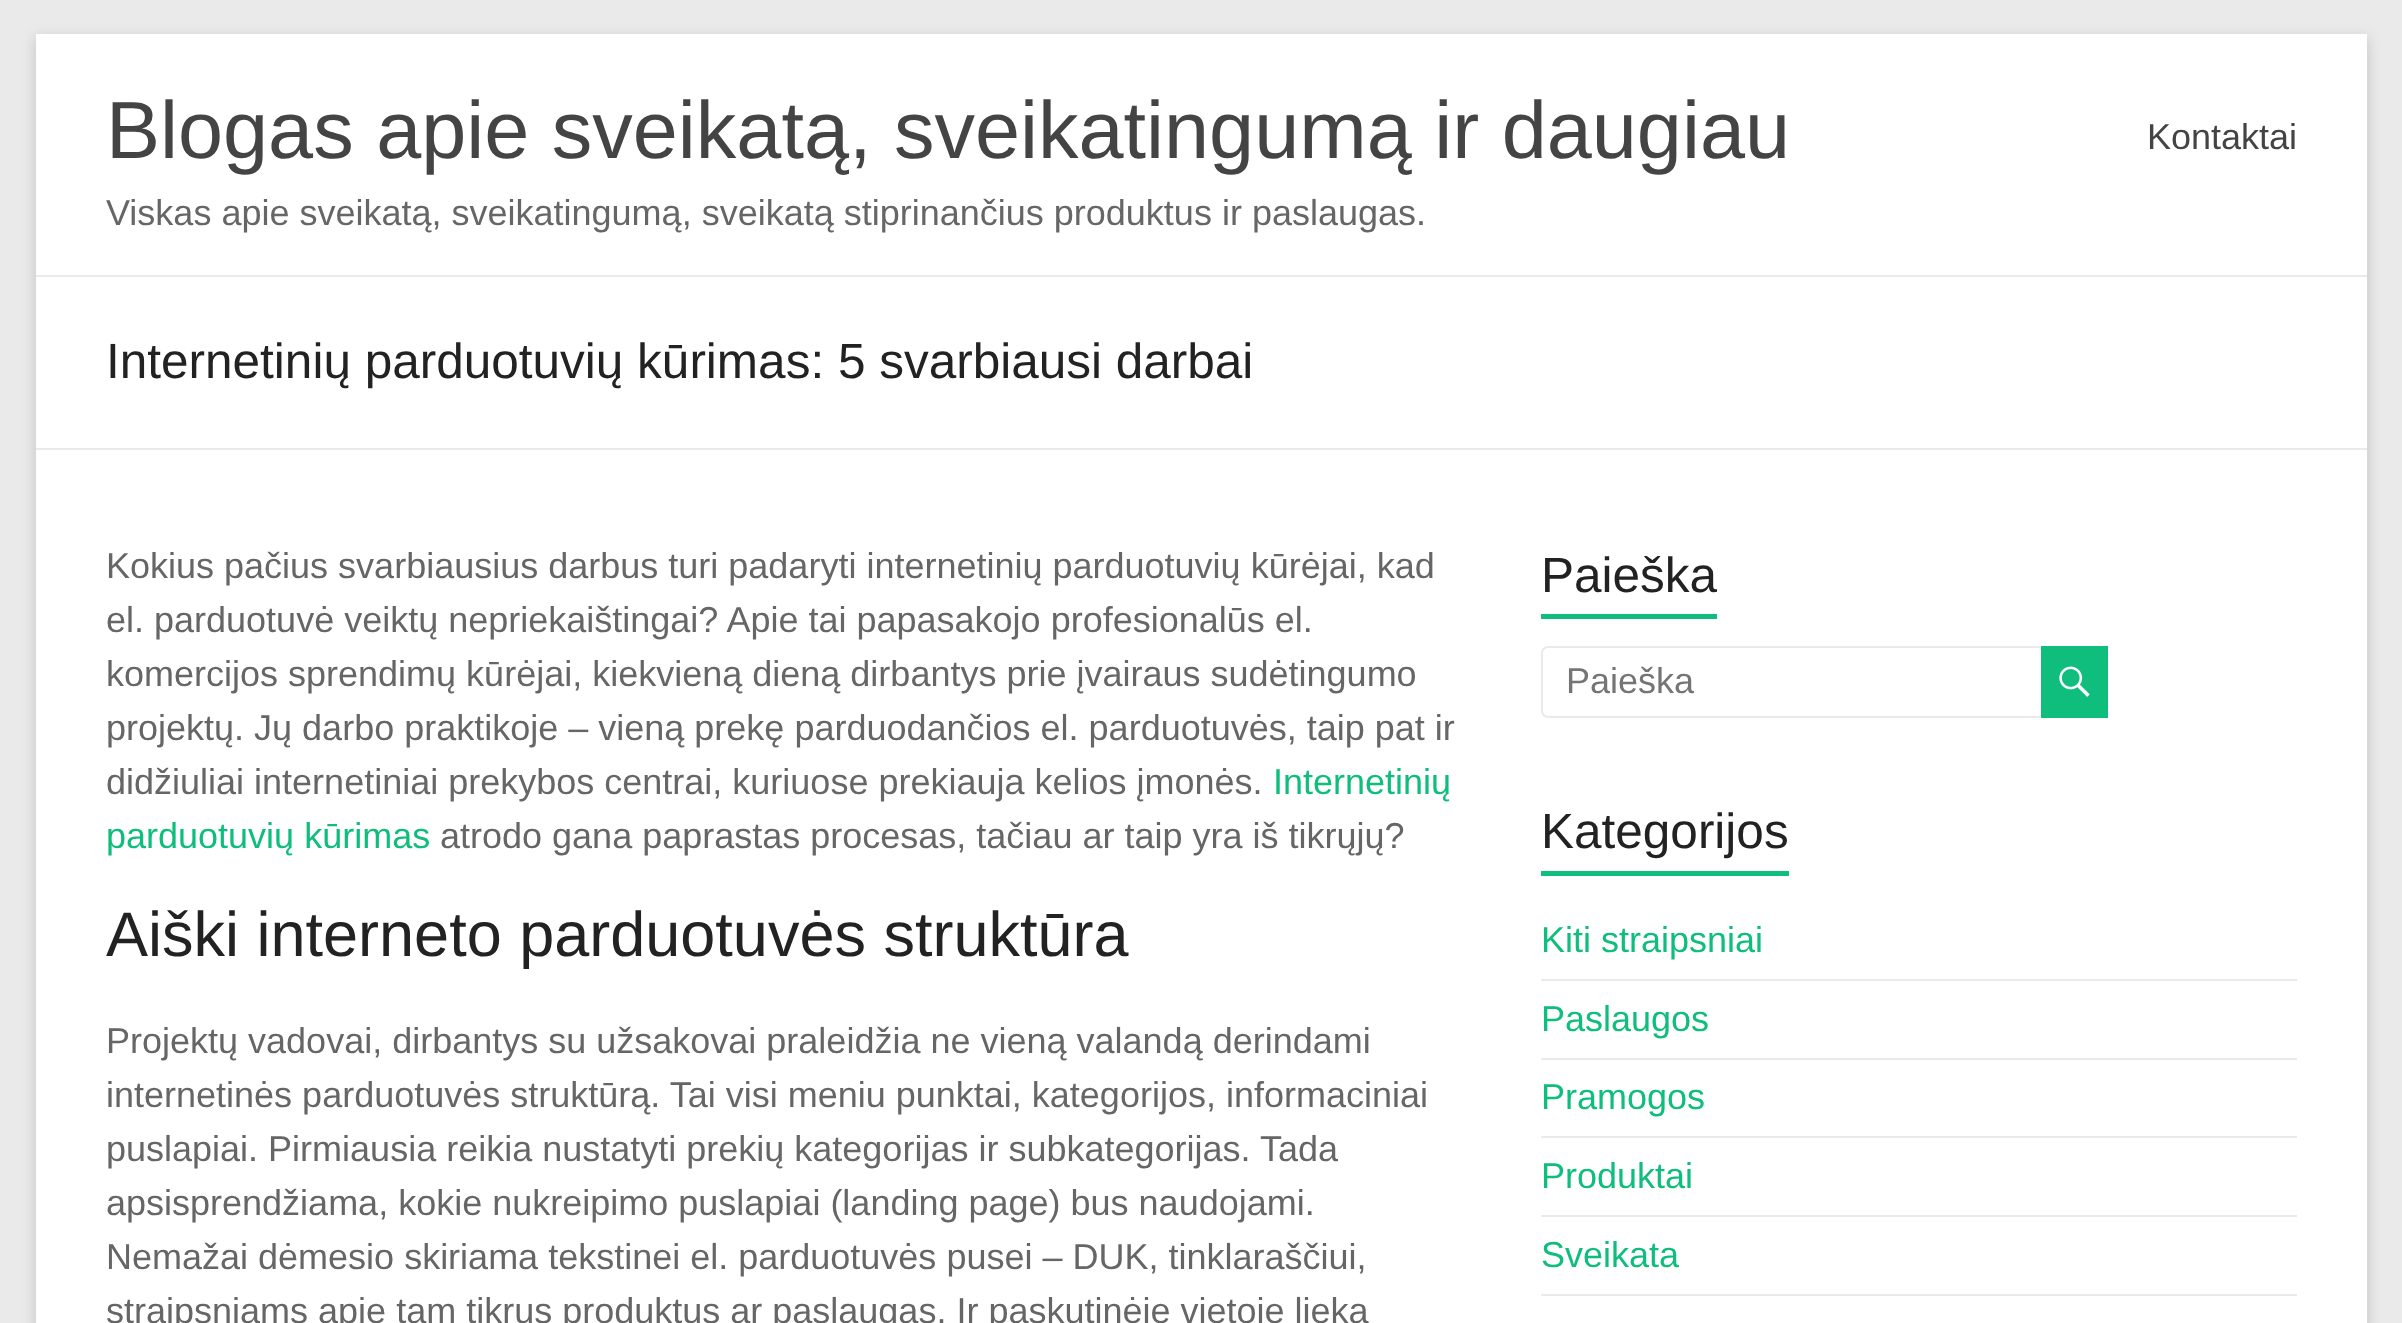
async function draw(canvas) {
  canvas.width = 2402
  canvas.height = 1323
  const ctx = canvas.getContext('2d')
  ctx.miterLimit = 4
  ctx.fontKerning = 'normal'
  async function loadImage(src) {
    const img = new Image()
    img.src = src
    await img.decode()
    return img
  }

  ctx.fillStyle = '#eaeaea'
  ctx.fillRect(0, 0, 2402, 1323)
  ctx.fillStyle = '#6464644d'
  ctx.filter = 'blur(7px)'
  ctx.beginPath()
  ctx.rect(36, 38, 2331, 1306)
  ctx.fill()
  ctx.filter = 'none'
  ctx.fillStyle = '#fff'
  ctx.fillRect(36, 34, 2331, 1289)
  ctx.fillStyle = '#eaeaea'
  ctx.fillRect(36, 275, 2331, 2)
  ctx.font = '81px Liberation Sans'
  ctx.fillStyle = '#444'
  ctx.fillText('Blogas apie sveikatą, sveikatingumą ir daugiau', 106, 158)
  ctx.font = '36px Liberation Sans'
  ctx.fillStyle = '#666'
  ctx.fillText('Viskas apie sveikatą, sveikatingumą, sveikatą stiprinančius produktus ir paslaugas.', 106, 225)
  ctx.fillStyle = '#444'
  ctx.fillText('Kontaktai', 2147, 149)
  ctx.fillStyle = '#eaeaea'
  ctx.fillRect(36, 448, 2331, 2)
  ctx.font = '49.5px Liberation Sans'
  ctx.fillStyle = '#222'
  ctx.fillText('Internetinių parduotuvių kūrimas: 5 svarbiausi darbai', 106, 378)
  ctx.font = '36px Liberation Sans'
  ctx.fillStyle = '#666'
  ctx.fillText('Kokius pačius svarbiausius darbus turi padaryti internetinių parduotuvių kūrėjai, kad', 106, 578)
  ctx.fillText('el. parduotuvė veiktų nepriekaištingai? Apie tai papasakojo profesionalūs el.', 106, 632)
  ctx.fillText('komercijos sprendimų kūrėjai, kiekvieną dieną dirbantys prie įvairaus sudėtingumo', 106, 686)
  ctx.fillText('projektų. Jų darbo praktikoje – vieną prekę parduodančios el. parduotuvės, taip pat ir', 106, 740)
  ctx.fillText('didžiuliai internetiniai prekybos centrai, kuriuose prekiauja kelios įmonės.', 106, 794)
  ctx.fillStyle = '#0fbe7c'
  ctx.fillText('Internetinių', 1273, 794)
  ctx.fillText('parduotuvių kūrimas', 106, 848)
  ctx.fillStyle = '#666'
  ctx.fillText('atrodo gana paprastas procesas, tačiau ar taip yra iš tikrųjų?', 440, 848)
  ctx.font = '63px Liberation Sans'
  ctx.fillStyle = '#222'
  ctx.fillText('Aiški interneto parduotuvės struktūra', 106, 956)
  ctx.font = '36px Liberation Sans'
  ctx.fillStyle = '#666'
  ctx.fillText('Projektų vadovai, dirbantys su užsakovai praleidžia ne vieną valandą derindami', 106, 1053)
  ctx.fillText('internetinės parduotuvės struktūrą. Tai visi meniu punktai, kategorijos, informaciniai', 106, 1107)
  ctx.fillText('puslapiai. Pirmiausia reikia nustatyti prekių kategorijas ir subkategorijas. Tada', 106, 1161)
  ctx.fillText('apsisprendžiama, kokie nukreipimo puslapiai (landing page) bus naudojami.', 106, 1215)
  ctx.fillText('Nemažai dėmesio skiriama tekstinei el. parduotuvės pusei – DUK, tinklaraščiui,', 106, 1269)
  ctx.fillText('straipsniams apie tam tikrus produktus ar paslaugas. Ir paskutinėje vietoje lieka', 106, 1323)
  ctx.font = '49.5px Liberation Sans'
  ctx.fillStyle = '#222'
  ctx.fillText('Paieška', 1541, 592)
  ctx.fillStyle = '#0fbe7c'
  ctx.fillRect(1541, 614, 176, 5)
  ctx.beginPath()
  ctx.roundRect(1542, 647, 502, 70, 6)
  ctx.strokeStyle = '#eaeaea'
  ctx.lineWidth = 2
  ctx.stroke()
  ctx.font = '36px Liberation Sans'
  ctx.fillStyle = '#757575'
  ctx.fillText('Paieška', 1566, 693)
  ctx.fillStyle = '#0fbe7c'
  ctx.fillRect(2041, 646, 67, 72)
  ctx.drawImage(await loadImage('image0.png'), 2059, 666, 31, 31)
  ctx.font = '49.5px Liberation Sans'
  ctx.fillStyle = '#222'
  ctx.fillText('Kategorijos', 1541, 848)
  ctx.fillStyle = '#0fbe7c'
  ctx.fillRect(1541, 871, 248, 5)
  ctx.fillStyle = '#eaeaea'
  ctx.fillRect(1541, 979, 756, 2)
  ctx.font = '36px Liberation Sans'
  ctx.fillStyle = '#0fbe7c'
  ctx.fillText('Kiti straipsniai', 1541, 952)
  ctx.fillStyle = '#eaeaea'
  ctx.fillRect(1541, 1058, 756, 2)
  ctx.fillStyle = '#0fbe7c'
  ctx.fillText('Paslaugos', 1541, 1031)
  ctx.fillStyle = '#eaeaea'
  ctx.fillRect(1541, 1136, 756, 2)
  ctx.fillStyle = '#0fbe7c'
  ctx.fillText('Pramogos', 1541, 1109)
  ctx.fillStyle = '#eaeaea'
  ctx.fillRect(1541, 1215, 756, 2)
  ctx.fillStyle = '#0fbe7c'
  ctx.fillText('Produktai', 1541, 1188)
  ctx.fillStyle = '#eaeaea'
  ctx.fillRect(1541, 1294, 756, 2)
  ctx.fillStyle = '#0fbe7c'
  ctx.fillText('Sveikata', 1541, 1267)
}

draw(document.querySelector('canvas'))
